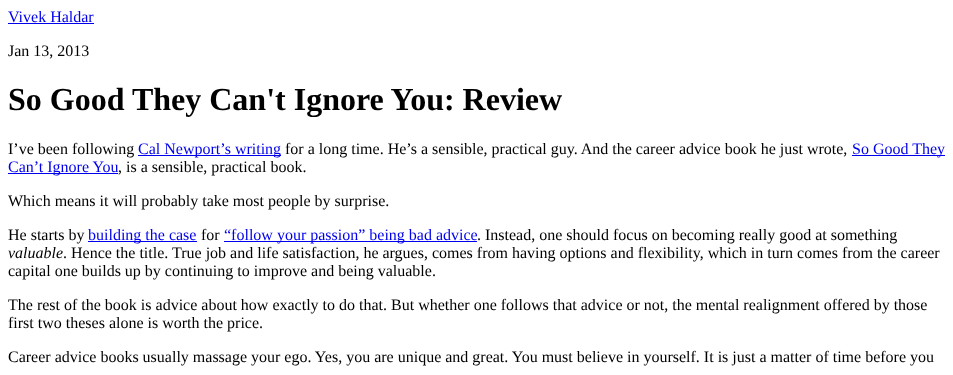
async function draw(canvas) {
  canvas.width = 953
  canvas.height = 375
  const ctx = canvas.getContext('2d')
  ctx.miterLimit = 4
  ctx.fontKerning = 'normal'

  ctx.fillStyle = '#fff'
  ctx.fillRect(0, 0, 953, 375)
  ctx.font = '16px Liberation Serif'
  ctx.fillStyle = '#00e'
  ctx.fillText('Vivek Haldar', 8, 22)
  ctx.fillRect(8, 23, 86, 1)
  ctx.fillStyle = '#000'
  ctx.fillText('Jan 13, 2013', 8, 56)
  ctx.font = 'bold 32px Liberation Serif'
  ctx.fillText('So Good They Can\'t Ignore You: Review', 8, 110)
  ctx.font = '16px Liberation Serif'
  ctx.fillText('I’ve been following', 8, 154)
  ctx.fillStyle = '#00e'
  ctx.fillRect(138, 155, 143, 1)
  ctx.fillText('Cal Newport’s writing', 138, 154)
  ctx.fillStyle = '#000'
  ctx.fillText('for a long time. He’s a sensible, practical guy. And the career advice book he just wrote,', 285, 154)
  ctx.fillStyle = '#00e'
  ctx.fillRect(852, 155, 93, 1)
  ctx.fillText('So Good They', 852, 154)
  ctx.fillRect(8, 173, 110, 1)
  ctx.fillText('Can’t Ignore You', 8, 172)
  ctx.fillStyle = '#000'
  ctx.fillText(', is a sensible, practical book.', 118, 172)
  ctx.fillText('Which means it will probably take most people by surprise.', 8, 206)
  ctx.fillText('He starts by', 8, 240)
  ctx.fillStyle = '#00e'
  ctx.fillRect(88, 241, 109, 1)
  ctx.fillText('building the case', 88, 240)
  ctx.fillStyle = '#000'
  ctx.fillText('for', 201, 240)
  ctx.fillStyle = '#00e'
  ctx.fillRect(224, 241, 253, 1)
  ctx.fillText('“follow your passion” being bad advice', 224, 240)
  ctx.fillStyle = '#000'
  ctx.fillText('. Instead, one should focus on becoming really good at something', 477, 240)
  ctx.font = 'italic 16px Liberation Serif'
  ctx.fillText('valuable', 8, 258)
  ctx.font = '16px Liberation Serif'
  ctx.fillText('. Hence the title. True job and life satisfaction, he argues, comes from having options and flexibility, which in turn comes from the career', 63, 258)
  ctx.fillText('capital one builds up by continuing to improve and being valuable.', 8, 276)
  ctx.fillText('The rest of the book is advice about how exactly to do that. But whether one follows that advice or not, the mental realignment offered by those', 8, 310)
  ctx.fillText('first two theses alone is worth the price.', 8, 328)
  ctx.fillText('Career advice books usually massage your ego. Yes, you are unique and great. You must believe in yourself. It is just a matter of time before you', 8, 362)
}

draw(document.querySelector('canvas'))
